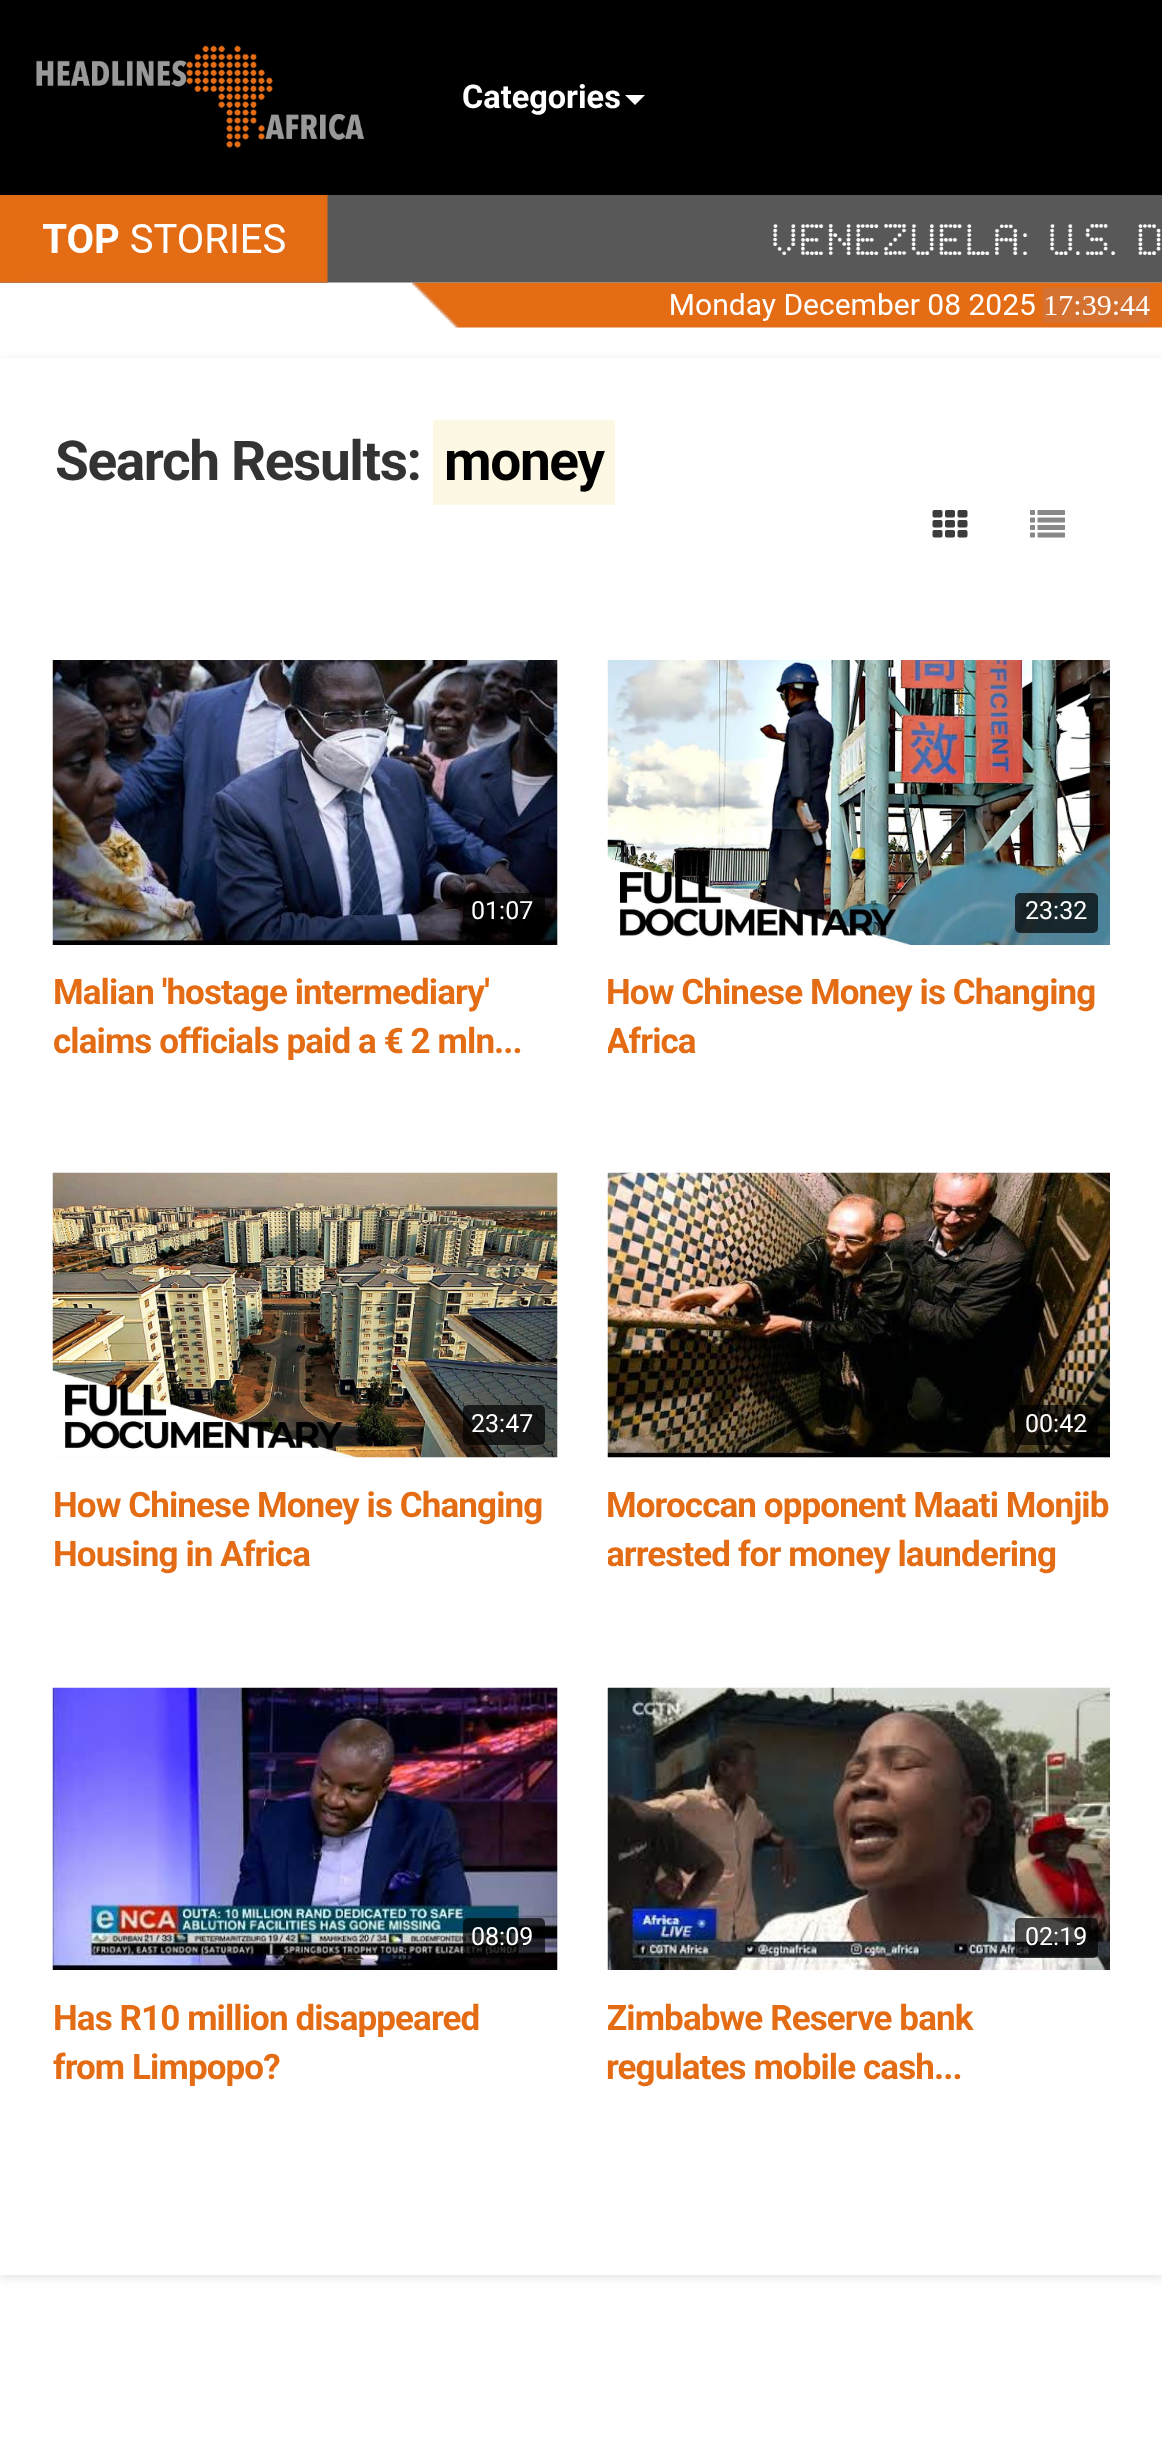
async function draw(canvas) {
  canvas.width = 1162
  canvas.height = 2457
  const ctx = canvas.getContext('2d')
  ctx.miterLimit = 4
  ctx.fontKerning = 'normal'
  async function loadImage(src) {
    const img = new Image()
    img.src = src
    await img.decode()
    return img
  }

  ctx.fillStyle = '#fff'
  ctx.fillRect(0, 0, 1162, 2457)
  ctx.fillStyle = '#000'
  ctx.fillRect(0, 0, 1162, 195)
  ctx.drawImage(await loadImage('image0.png'), 36, 45, 329, 103)
  ctx.font = 'bold 32.5px Roboto'
  ctx.fillStyle = '#fff'
  ctx.fillText('Categories', 462, 108)
  ctx.beginPath()
  ctx.moveTo(625, 95)
  ctx.lineTo(645, 95)
  ctx.lineTo(635, 105)
  ctx.closePath()
  ctx.fill()
  ctx.drawImage(await loadImage('image1.png'), 0, 195, 1162, 133)
  ctx.save()
  ctx.beginPath()
  ctx.moveTo(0, 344)
  ctx.lineTo(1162, 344)
  ctx.lineTo(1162, 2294)
  ctx.lineTo(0, 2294)
  ctx.closePath()
  ctx.moveTo(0, 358)
  ctx.lineTo(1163, 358)
  ctx.lineTo(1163, 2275)
  ctx.lineTo(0, 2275)
  ctx.closePath()
  ctx.clip('evenodd')
  ctx.fillStyle = '#0000001a'
  ctx.filter = 'blur(5px)'
  ctx.beginPath()
  ctx.rect(0, 360, 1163, 1918)
  ctx.fill()
  ctx.filter = 'none'
  ctx.restore()
  ctx.letterSpacing = '-1.4px'
  ctx.font = 'bold 55px Roboto'
  ctx.fillStyle = '#333'
  ctx.fillText('Search Results:', 55, 480)
  ctx.fillStyle = '#fcf8e3'
  ctx.fillRect(433, 420, 182, 85)
  ctx.fillStyle = '#000'
  ctx.fillText('money', 444, 480)
  ctx.drawImage(await loadImage('image2.png'), 932, 510, 36, 28)
  ctx.drawImage(await loadImage('image3.png'), 1030, 510, 35, 28)
  ctx.fillStyle = '#fafafa'
  ctx.fillRect(557, 660, 1, 285)
  ctx.drawImage(await loadImage('image4.png'), 52, 660, 506, 285)
  ctx.fillStyle = '#000000b3'
  ctx.beginPath()
  ctx.roundRect(463, 893, 82, 40, 5)
  ctx.fill()
  ctx.letterSpacing = '0px'
  ctx.font = '25px Roboto'
  ctx.fillStyle = '#fff'
  ctx.fillText('01:07', 471, 919)
  ctx.letterSpacing = '-0.9px'
  ctx.font = 'bold 35px Roboto'
  ctx.fillStyle = '#e36c14'
  ctx.fillText('Malian \'hostage intermediary\'', 53, 1004)
  ctx.fillText('claims officials paid a € 2 mln...', 53, 1053)
  ctx.drawImage(await loadImage('image5.png'), 607, 660, 503, 285)
  ctx.fillStyle = '#000000b3'
  ctx.beginPath()
  ctx.roundRect(1015, 893, 83, 40, 5)
  ctx.fill()
  ctx.letterSpacing = '0px'
  ctx.font = '25px Roboto'
  ctx.fillStyle = '#fff'
  ctx.fillText('23:32', 1025, 919)
  ctx.letterSpacing = '-0.9px'
  ctx.font = 'bold 35px Roboto'
  ctx.fillStyle = '#e36c14'
  ctx.fillText('How Chinese Money is Changing', 606, 1004)
  ctx.save()
  ctx.beginPath()
  ctx.rect(608, 970, 502, 98)
  ctx.clip()
  ctx.fillText('Africa', 606, 1053)
  ctx.restore()
  ctx.fillStyle = '#fafafa'
  ctx.fillRect(53, 1173, 505, 285)
  ctx.drawImage(await loadImage('image6.png'), 52, 1172, 506, 286)
  ctx.fillStyle = '#000000b3'
  ctx.beginPath()
  ctx.roundRect(463, 1405, 82, 40, 5)
  ctx.fill()
  ctx.letterSpacing = '0px'
  ctx.font = '25px Roboto'
  ctx.fillStyle = '#fff'
  ctx.fillText('23:47', 471, 1432)
  ctx.letterSpacing = '-0.9px'
  ctx.font = 'bold 35px Roboto'
  ctx.fillStyle = '#e36c14'
  ctx.fillText('How Chinese Money is Changing', 53, 1517)
  ctx.fillText('Housing in Africa', 53, 1566)
  ctx.fillStyle = '#fafafa'
  ctx.fillRect(608, 1457, 502, 1)
  ctx.drawImage(await loadImage('image7.png'), 607, 1172, 503, 286)
  ctx.fillStyle = '#000000b3'
  ctx.beginPath()
  ctx.roundRect(1015, 1405, 83, 40, 5)
  ctx.fill()
  ctx.letterSpacing = '0px'
  ctx.font = '25px Roboto'
  ctx.fillStyle = '#fff'
  ctx.fillText('00:42', 1025, 1432)
  ctx.letterSpacing = '-0.9px'
  ctx.font = 'bold 35px Roboto'
  ctx.fillStyle = '#e36c14'
  ctx.fillText('Moroccan opponent Maati Monjib', 606, 1517)
  ctx.save()
  ctx.beginPath()
  ctx.rect(608, 1483, 502, 97)
  ctx.clip()
  ctx.fillText('arrested for money laundering', 606, 1566)
  ctx.restore()
  ctx.fillStyle = '#fafafa'
  ctx.fillRect(557, 1688, 1, 282)
  ctx.drawImage(await loadImage('image8.png'), 52, 1687, 506, 283)
  ctx.fillStyle = '#000000b3'
  ctx.beginPath()
  ctx.roundRect(463, 1918, 82, 40, 5)
  ctx.fill()
  ctx.letterSpacing = '0px'
  ctx.font = '25px Roboto'
  ctx.fillStyle = '#fff'
  ctx.fillText('08:09', 471, 1945)
  ctx.letterSpacing = '-0.9px'
  ctx.font = 'bold 35px Roboto'
  ctx.fillStyle = '#e36c14'
  ctx.fillText('Has R10 million disappeared', 53, 2030)
  ctx.fillText('from Limpopo?', 53, 2079)
  ctx.drawImage(await loadImage('image9.png'), 607, 1687, 503, 283)
  ctx.fillStyle = '#000000b3'
  ctx.beginPath()
  ctx.roundRect(1015, 1918, 83, 40, 5)
  ctx.fill()
  ctx.letterSpacing = '0px'
  ctx.font = '25px Roboto'
  ctx.fillStyle = '#fff'
  ctx.fillText('02:19', 1025, 1945)
  ctx.save()
  ctx.beginPath()
  ctx.rect(608, 1995, 502, 98)
  ctx.clip()
  ctx.letterSpacing = '-0.9px'
  ctx.font = 'bold 35px Roboto'
  ctx.fillStyle = '#e36c14'
  ctx.fillText('Zimbabwe Reserve bank', 606, 2030)
  ctx.restore()
  ctx.letterSpacing = '-0.9px'
  ctx.font = 'bold 35px Roboto'
  ctx.fillStyle = '#e36c14'
  ctx.fillText('regulates mobile cash...', 606, 2079)
}

draw(document.querySelector('canvas'))
